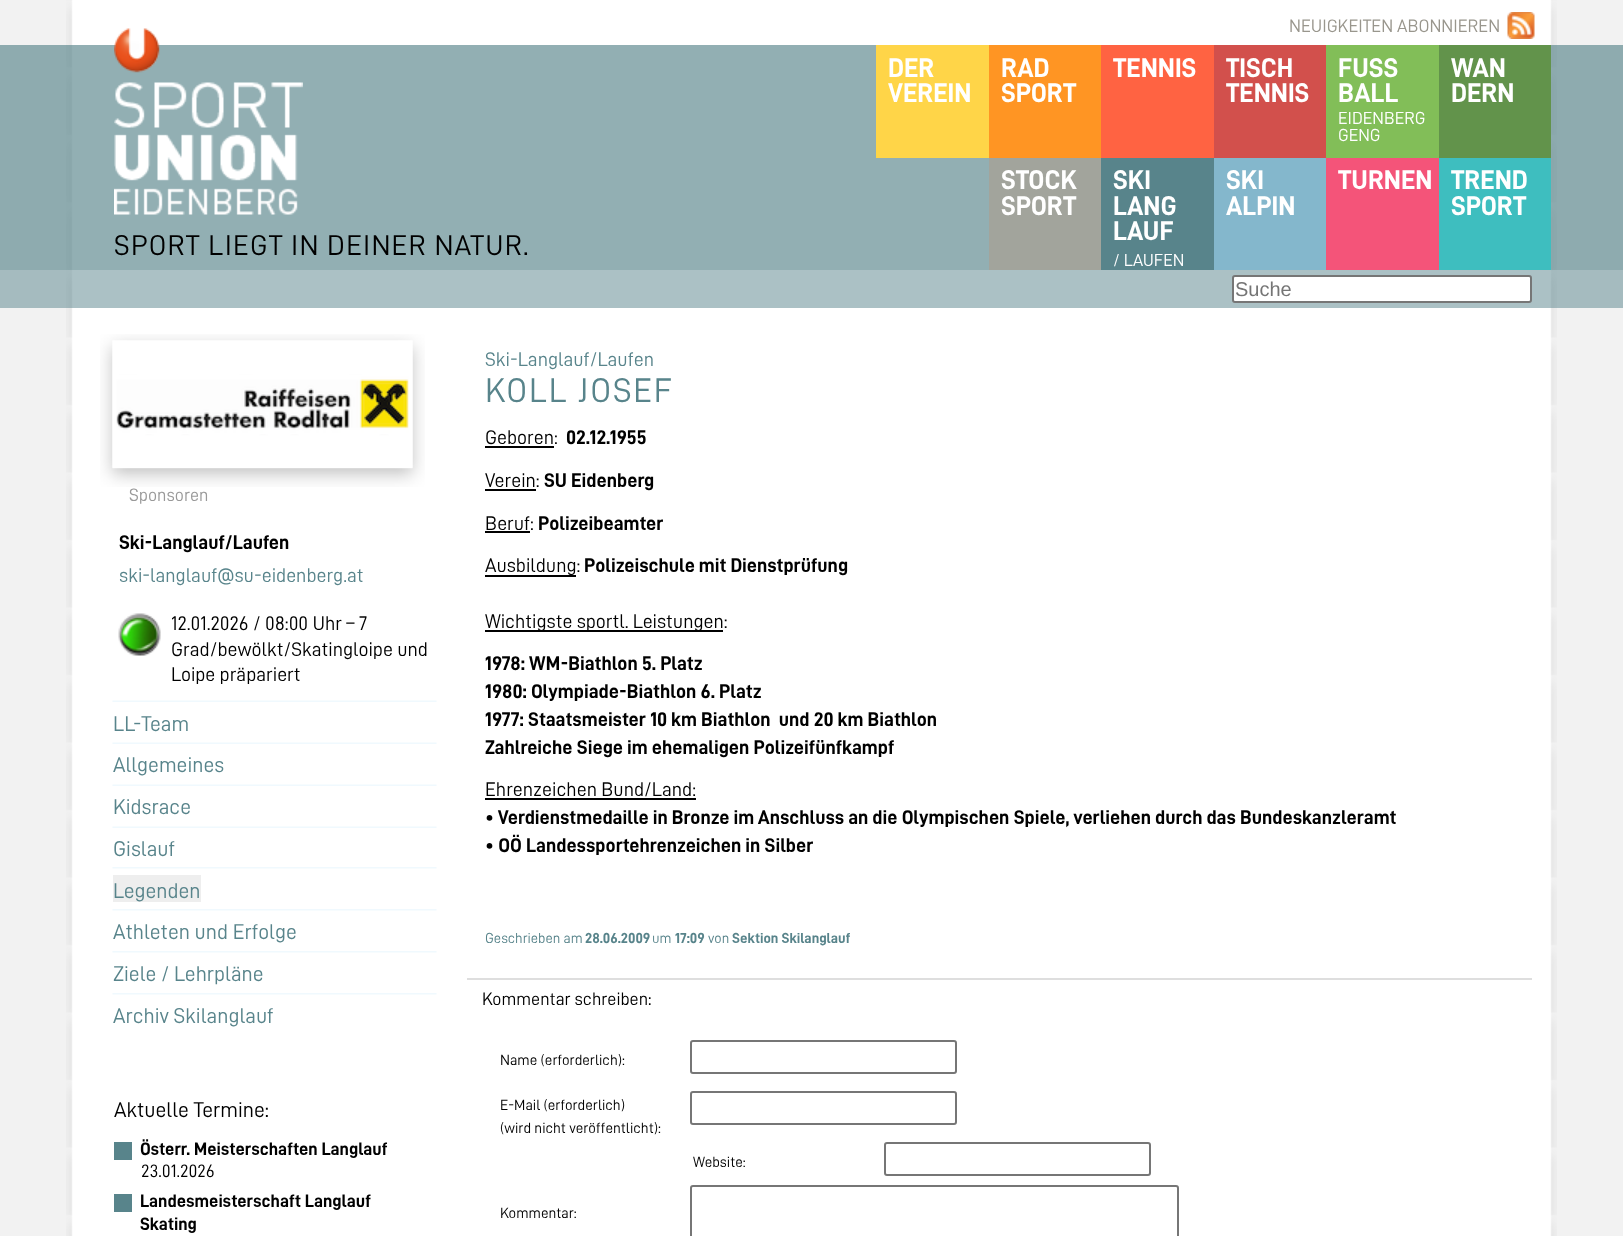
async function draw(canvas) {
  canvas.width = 1623
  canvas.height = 1236
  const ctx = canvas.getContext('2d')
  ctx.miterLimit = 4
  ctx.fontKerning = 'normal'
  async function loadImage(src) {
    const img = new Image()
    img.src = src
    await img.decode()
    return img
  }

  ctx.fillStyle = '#f2f2f2'
  ctx.fillRect(0, 0, 1623, 1236)
  ctx.drawImage(await loadImage('image2.png'), 66, 0, 1491, 1236)
  ctx.drawImage(await loadImage('image0.png'), 1507, 12, 28, 27)
  ctx.font = '18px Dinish'
  ctx.fillStyle = '#99968d'
  ctx.fillText('NEUIGKEITEN ABONNIEREN', 1289, 32)
  ctx.fillStyle = '#58848ba6'
  ctx.fillRect(0, 45, 1623, 225)
  ctx.drawImage(await loadImage('image1.png'), 114, 28, 189, 187)
  ctx.fillStyle = '#ffd548'
  ctx.fillRect(876, 45, 113, 113)
  ctx.font = 'bold 27px Dinish'
  ctx.fillStyle = '#fff'
  ctx.fillText('DER', 888, 77)
  ctx.fillText('VEREIN', 888, 102)
  ctx.fillStyle = '#ff9523'
  ctx.fillRect(989, 45, 112, 113)
  ctx.fillStyle = '#fff'
  ctx.fillText('RAD', 1001, 77)
  ctx.fillText('SPORT', 1001, 102)
  ctx.fillStyle = '#ff6342'
  ctx.fillRect(1101, 45, 113, 113)
  ctx.fillStyle = '#fff'
  ctx.fillText('TENNIS', 1113, 77)
  ctx.fillStyle = '#d2504c'
  ctx.fillRect(1214, 45, 112, 113)
  ctx.fillStyle = '#fff'
  ctx.fillText('TISCH', 1226, 77)
  ctx.fillText('TENNIS', 1226, 102)
  ctx.fillStyle = '#82be58'
  ctx.fillRect(1326, 45, 113, 113)
  ctx.fillStyle = '#fff'
  ctx.fillText('FUSS', 1338, 77)
  ctx.fillText('BALL', 1338, 102)
  ctx.font = '17.5px Dinish'
  ctx.fillText('EIDENBERG', 1338, 124)
  ctx.fillText('GENG', 1338, 141)
  ctx.fillStyle = '#62934b'
  ctx.fillRect(1439, 45, 112, 113)
  ctx.font = 'bold 27px Dinish'
  ctx.fillStyle = '#fff'
  ctx.fillText('WAN', 1451, 77)
  ctx.fillText('DERN', 1451, 102)
  ctx.fillStyle = '#a2a49c'
  ctx.fillRect(989, 158, 112, 112)
  ctx.fillStyle = '#fff'
  ctx.fillText('STOCK', 1001, 189)
  ctx.fillText('SPORT', 1001, 215)
  ctx.fillStyle = '#58848b'
  ctx.fillRect(1101, 158, 113, 112)
  ctx.fillStyle = '#fff'
  ctx.fillText('SKI', 1113, 189)
  ctx.fillText('LANG', 1113, 215)
  ctx.fillText('LAUF', 1113, 240)
  ctx.font = '17.5px Dinish'
  ctx.fillText('/ LAUFEN', 1113, 266)
  ctx.fillStyle = '#84b7cc'
  ctx.fillRect(1214, 158, 112, 112)
  ctx.font = 'bold 27px Dinish'
  ctx.fillStyle = '#fff'
  ctx.fillText('SKI', 1226, 189)
  ctx.fillText('ALPIN', 1226, 215)
  ctx.fillStyle = '#f45479'
  ctx.fillRect(1326, 158, 113, 112)
  ctx.fillStyle = '#fff'
  ctx.fillText('TURNEN', 1338, 189)
  ctx.fillStyle = '#3ebebf'
  ctx.fillRect(1439, 158, 112, 112)
  ctx.fillStyle = '#fff'
  ctx.fillText('TREND', 1451, 189)
  ctx.fillText('SPORT', 1451, 215)
  ctx.letterSpacing = '1.2px'
  ctx.font = '28.75px Dinish'
  ctx.fillStyle = '#000'
  ctx.fillText('SPORT LIEGT IN DEINER NATUR.', 114, 255)
  ctx.fillStyle = '#58848b80'
  ctx.fillRect(0, 270, 1623, 38)
  ctx.fillStyle = '#fff'
  ctx.beginPath()
  ctx.roundRect(1233, 276, 298, 26, 2)
  ctx.fill()
  ctx.strokeStyle = '#767676'
  ctx.lineWidth = 2
  ctx.stroke()
  ctx.letterSpacing = '0px'
  ctx.font = '20px Liberation Sans'
  ctx.fillStyle = '#757575'
  ctx.fillText('Suche', 1235, 296)
  ctx.drawImage(await loadImage('image3.png'), 100, 334, 325, 153)
  ctx.drawImage(await loadImage('image4.png'), 112, 340, 301, 128)
  ctx.drawImage(await loadImage('image5.png'), 116, 375, 293, 59)
  ctx.font = '18px Dinish'
  ctx.fillStyle = '#999'
  ctx.fillText('Sponsoren', 129, 501)
  ctx.font = 'bold 19.8px Dinish'
  ctx.fillStyle = '#000'
  ctx.fillText('Ski-Langlauf/Laufen', 119, 549)
  ctx.font = '19.8px Dinish'
  ctx.fillStyle = '#58848b'
  ctx.fillText('ski-langlauf@su-eidenberg.at', 119, 582)
  ctx.drawImage(await loadImage('image6.png'), 118, 613, 43, 43)
  ctx.fillStyle = '#000'
  ctx.fillText('12.01.2026 / 08:00 Uhr – 7', 171, 630)
  ctx.fillText('Grad/bewölkt/Skatingloipe und', 171, 656)
  ctx.fillText('Loipe präpariert', 171, 681)
  ctx.drawImage(await loadImage('image7.png'), 112, 700, 325, 2)
  ctx.font = '21.5px Dinish'
  ctx.fillStyle = '#58848b'
  ctx.fillText('LL-Team', 113, 731)
  ctx.drawImage(await loadImage('image7.png'), 112, 742, 325, 2)
  ctx.fillText('Allgemeines', 113, 772)
  ctx.drawImage(await loadImage('image7.png'), 112, 784, 325, 2)
  ctx.fillText('Kidsrace', 113, 814)
  ctx.drawImage(await loadImage('image7.png'), 112, 826, 325, 2)
  ctx.fillText('Gislauf', 113, 856)
  ctx.drawImage(await loadImage('image8.png'), 112, 867, 325, 2)
  ctx.fillStyle = '#eee'
  ctx.fillRect(113, 875, 88, 27)
  ctx.fillStyle = '#58848b'
  ctx.fillText('Legenden', 113, 898)
  ctx.drawImage(await loadImage('image8.png'), 112, 909, 325, 2)
  ctx.fillText('Athleten und Erfolge', 113, 939)
  ctx.drawImage(await loadImage('image8.png'), 112, 951, 325, 2)
  ctx.fillText('Ziele / Lehrpläne', 113, 981)
  ctx.drawImage(await loadImage('image8.png'), 112, 993, 325, 2)
  ctx.fillText('Archiv Skilanglauf', 113, 1023)
  ctx.fillStyle = '#000'
  ctx.fillText('Aktuelle Termine:', 114, 1117)
  ctx.fillStyle = '#58848b'
  ctx.fillRect(114, 1142, 18, 18)
  ctx.font = 'bold 18px Dinish'
  ctx.fillStyle = '#000'
  ctx.fillText('Österr. Meisterschaften Langlauf', 140, 1155)
  ctx.font = '18px Dinish'
  ctx.fillText('23.01.2026', 141, 1177)
  ctx.fillStyle = '#58848b'
  ctx.fillRect(114, 1194, 18, 18)
  ctx.font = 'bold 18px Dinish'
  ctx.fillStyle = '#000'
  ctx.fillText('Landesmeisterschaft Langlauf', 140, 1207)
  ctx.fillText('Skating', 140, 1230)
  ctx.fillStyle = '#dedede'
  ctx.fillRect(467, 978, 1065, 2)
  ctx.font = '19.8px Dinish'
  ctx.fillStyle = '#58848b'
  ctx.fillText('Ski-Langlauf/Laufen', 485, 366)
  ctx.letterSpacing = '1.75px'
  ctx.font = '34.25px Dinish'
  ctx.fillText('KOLL JOSEF', 485, 402)
  ctx.letterSpacing = '0px'
  ctx.font = '19.8px Dinish'
  ctx.fillStyle = '#000'
  ctx.fillText('Geboren:', 485, 444)
  ctx.fillRect(485, 446, 69, 2)
  ctx.font = 'bold 19.8px Dinish'
  ctx.fillText('02.12.1955', 566, 444)
  ctx.font = '19.8px Dinish'
  ctx.fillText('Verein:', 485, 487)
  ctx.fillRect(485, 489, 51, 2)
  ctx.font = 'bold 19.8px Dinish'
  ctx.fillText('SU Eidenberg', 544, 487)
  ctx.font = '19.8px Dinish'
  ctx.fillText('Beruf:', 485, 530)
  ctx.fillRect(485, 531, 45, 2)
  ctx.font = 'bold 19.8px Dinish'
  ctx.fillText('Polizeibeamter', 538, 530)
  ctx.fillRect(485, 575, 91, 2)
  ctx.font = '19.8px Dinish'
  ctx.fillText('Ausbildung:', 485, 572)
  ctx.font = 'bold 19.8px Dinish'
  ctx.fillText('Polizeischule mit Dienstprüfung', 584, 572)
  ctx.fillRect(485, 630, 238, 2)
  ctx.font = '19.8px Dinish'
  ctx.fillText('Wichtigste sportl. Leistungen:', 485, 628)
  ctx.font = 'bold 19.8px Dinish'
  ctx.fillText('1978: WM-Biathlon 5. Platz', 485, 670)
  ctx.fillText('1980: Olympiade-Biathlon 6. Platz', 485, 698)
  ctx.fillText('1977: Staatsmeister 10 km Biathlon  und 20 km Biathlon', 485, 726)
  ctx.fillText('Zahlreiche Siege im ehemaligen Polizeifünfkampf', 485, 754)
  ctx.font = '19.8px Dinish'
  ctx.fillText('Ehrenzeichen Bund/Land:', 485, 796)
  ctx.fillRect(485, 798, 211, 2)
  ctx.font = 'bold 19.8px Dinish'
  ctx.fillText('• Verdienstmedaille in Bronze im Anschluss an die Olympischen Spiele, verliehen durch das Bundeskanzleramt', 485, 824)
  ctx.fillText('• OÖ Landessportehrenzeichen in Silber', 485, 852)
  ctx.font = '14.5px Dinish'
  ctx.fillStyle = '#58848b'
  ctx.fillText('Geschrieben am', 485, 943)
  ctx.font = 'bold 14.5px Dinish'
  ctx.fillText('28.06.2009', 585, 943)
  ctx.font = '14.5px Dinish'
  ctx.fillText('um', 652, 943)
  ctx.font = 'bold 14.5px Dinish'
  ctx.fillText('17:09', 675, 943)
  ctx.font = '14.5px Dinish'
  ctx.fillText('von', 708, 943)
  ctx.font = 'bold 14.5px Dinish'
  ctx.fillText('Sektion Skilanglauf', 732, 943)
  ctx.font = '18px Dinish'
  ctx.fillStyle = '#000'
  ctx.fillText('Kommentar schreiben:', 482, 1005)
  ctx.font = '15px Dinish'
  ctx.fillText('Name (erforderlich):', 500, 1065)
  ctx.beginPath()
  ctx.roundRect(691, 1041, 265, 32, 2)
  ctx.stroke()
  ctx.fillText('E-Mail (erforderlich)', 500, 1110)
  ctx.fillText('(wird nicht veröffentlicht):', 500, 1133)
  ctx.beginPath()
  ctx.roundRect(691, 1092, 265, 32, 2)
  ctx.stroke()
  ctx.fillText('Website:', 693, 1167)
  ctx.beginPath()
  ctx.roundRect(885, 1143, 265, 32, 2)
  ctx.stroke()
  ctx.fillText('Kommentar:', 500, 1218)
  ctx.beginPath()
  ctx.roundRect(691, 1186, 487, 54, 2)
  ctx.stroke()
}

draw(document.querySelector('canvas'))
